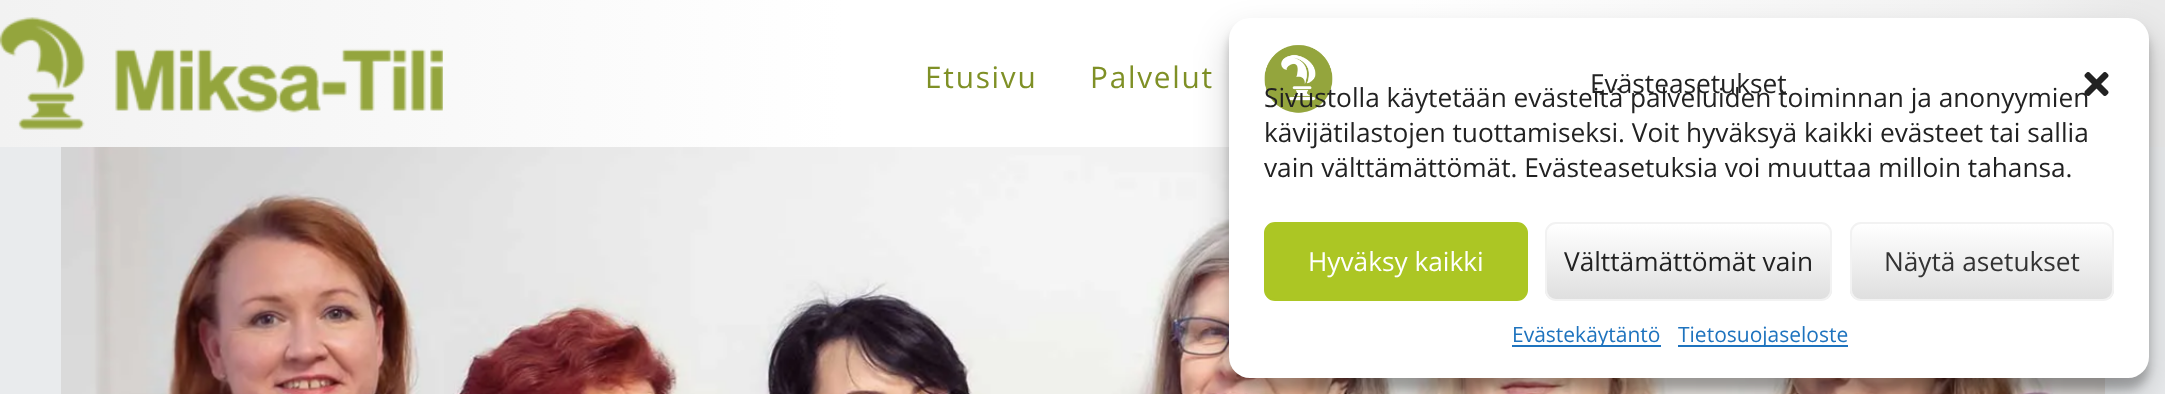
async function draw(canvas) {
  canvas.width = 2165
  canvas.height = 394
  const ctx = canvas.getContext('2d')
  ctx.miterLimit = 4
  ctx.fontKerning = 'normal'
  async function loadImage(src) {
    const img = new Image()
    img.src = src
    await img.decode()
    return img
  }
  let gradient

  ctx.fillStyle = '#e9ebed'
  ctx.fillRect(0, 0, 2165, 394)
  gradient = ctx.createLinearGradient(0, 74, 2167, 73)
  gradient.addColorStop(0, '#000')
  gradient.addColorStop(0, '#f2f2f2')
  gradient.addColorStop(0.39, '#fff')
  gradient.addColorStop(0.65, '#fff')
  gradient.addColorStop(0.93, '#f2f2f2')
  gradient.addColorStop(0.99, '#eaeaea')
  ctx.fillStyle = gradient
  ctx.fillRect(0, 0, 2165, 147)
  ctx.drawImage(await loadImage('image0.png'), 0, 17, 443, 113)
  ctx.letterSpacing = '1.75px'
  ctx.font = '29.75px Open Sans'
  ctx.fillStyle = '#7f9026'
  ctx.fillText('Etusivu', 925, 88)
  ctx.fillText('Palvelut', 1090, 88)
  ctx.drawImage(await loadImage('image1.png'), 61, 147, 2044, 247)
  ctx.fillStyle = '#0000003b'
  ctx.filter = 'blur(5px)'
  ctx.beginPath()
  ctx.roundRect(1229, 28, 920, 361, 21)
  ctx.fill()
  ctx.filter = 'none'
  ctx.fillStyle = '#00000030'
  ctx.filter = 'blur(17.5px)'
  ctx.beginPath()
  ctx.roundRect(1229, 35, 920, 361, 21)
  ctx.fill()
  ctx.filter = 'none'
  ctx.fillStyle = '#fff'
  ctx.beginPath()
  ctx.roundRect(1229, 18, 920, 360, 21)
  ctx.fill()
  ctx.drawImage(await loadImage('image2.png'), 1264, 45, 69, 68)
  ctx.letterSpacing = '0px'
  ctx.font = '26.25px Open Sans'
  ctx.fillStyle = '#222'
  ctx.fillText('Evästeasetukset', 1590, 93)
  ctx.drawImage(await loadImage('image3.png'), 2084, 72, 25, 24)
  ctx.fillText('Sivustolla käytetään evästeitä palveluiden toiminnan ja anonyymien', 1264, 107)
  ctx.fillText('kävijätilastojen tuottamiseksi. Voit hyväksyä kaikki evästeet tai sallia', 1264, 142)
  ctx.fillText('vain välttämättömät. Evästeasetuksia voi muuttaa milloin tahansa.', 1264, 177)
  ctx.fillStyle = '#acc624'
  ctx.beginPath()
  ctx.roundRect(1265, 223, 262, 77, 10)
  ctx.fill()
  ctx.strokeStyle = '#acc624'
  ctx.lineWidth = 2
  ctx.stroke()
  ctx.fillStyle = '#fff'
  ctx.fillText('Hyväksy kaikki', 1308, 271)
  ctx.save()
  ctx.beginPath()
  ctx.roundRect(1545, 222, 287, 79, 11)
  ctx.clip()
  gradient = ctx.createLinearGradient(1547, 299, 1547, 224)
  gradient.addColorStop(0, '#dfdfdf')
  gradient.addColorStop(1, '#fff')
  ctx.fillStyle = gradient
  ctx.fillRect(1545, 224, 287, 75)
  ctx.restore()
  ctx.beginPath()
  ctx.roundRect(1546, 223, 285, 77, 10)
  ctx.strokeStyle = '#f2f2f2'
  ctx.stroke()
  ctx.fillStyle = '#222'
  ctx.fillText('Välttämättömät vain', 1564, 271)
  ctx.save()
  ctx.beginPath()
  ctx.roundRect(1850, 222, 264, 79, 11)
  ctx.clip()
  gradient = ctx.createLinearGradient(1852, 299, 1852, 224)
  gradient.addColorStop(0, '#dfdfdf')
  gradient.addColorStop(1, '#fff')
  ctx.fillStyle = gradient
  ctx.fillRect(1850, 224, 264, 75)
  ctx.restore()
  ctx.beginPath()
  ctx.roundRect(1851, 223, 262, 77, 10)
  ctx.stroke()
  ctx.fillStyle = '#333'
  ctx.fillText('Näytä asetukset', 1884, 271)
  ctx.fillStyle = '#1e73be'
  ctx.fillRect(1512, 345, 149, 2)
  ctx.font = '21px Open Sans'
  ctx.fillText('Evästekäytäntö', 1512, 342)
  ctx.fillRect(1678, 345, 170, 2)
  ctx.fillText('Tietosuojaseloste', 1678, 342)
}

draw(document.querySelector('canvas'))
